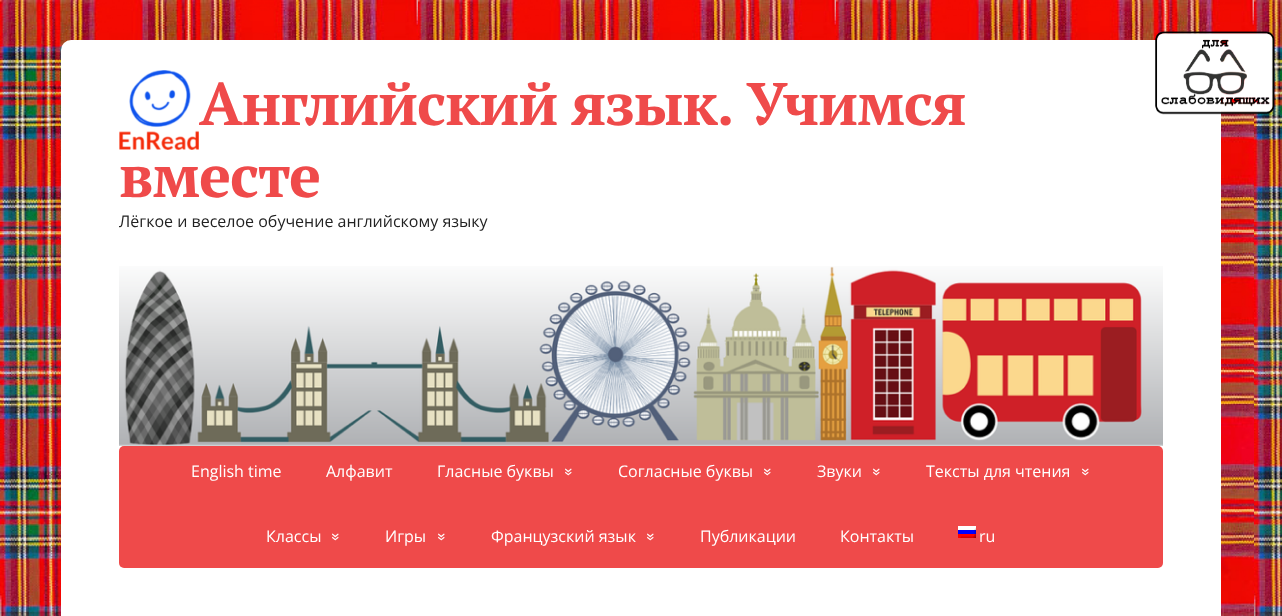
async function draw(canvas) {
  canvas.width = 1282
  canvas.height = 616
  const ctx = canvas.getContext('2d')
  ctx.miterLimit = 4
  ctx.fontKerning = 'normal'
  async function loadImage(src) {
    const img = new Image()
    img.src = src
    await img.decode()
    return img
  }

  ctx.fillStyle = '#fff'
  ctx.fillRect(0, 0, 1282, 616)
  ctx.drawImage(await loadImage('image0.png'), 0, 0, 1282, 616)
  ctx.beginPath()
  ctx.roundRect(61, 40, 1160, 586, 10)
  ctx.fill()
  ctx.drawImage(await loadImage('image1.png'), 1155, 31, 120, 84)
  ctx.drawImage(await loadImage('image2.png'), 119, 70, 80, 80)
  ctx.letterSpacing = '-1.2px'
  ctx.wordSpacing = '-1px'
  ctx.font = 'bold 60px PT Serif'
  ctx.fillStyle = '#ef4a4a'
  ctx.fillText('Английский язык. Учимся', 199, 125)
  ctx.wordSpacing = '0px'
  ctx.fillText('вместе', 119, 197)
  ctx.letterSpacing = '0px'
  ctx.font = '16px Open Sans'
  ctx.fillStyle = '#222'
  ctx.fillText('Лёгкое и веселое обучение английскому языку', 119, 227)
  ctx.drawImage(await loadImage('image3.png'), 119, 266, 1044, 180)
  ctx.fillStyle = '#ef4a4a'
  ctx.beginPath()
  ctx.roundRect(119, 446, 1044, 122, 5)
  ctx.fill()
  ctx.fillStyle = '#fff'
  ctx.fillText('English time', 191, 477)
  ctx.fillText('Алфавит', 326, 477)
  ctx.fillText('Гласные буквы', 437, 477)
  ctx.save()
  ctx.translate(564, 468)
  ctx.rotate(90 * Math.PI / 180)
  ctx.fillText('»', 0, 0)
  ctx.restore()
  ctx.fillText('Согласные буквы', 618, 477)
  ctx.save()
  ctx.translate(763, 468)
  ctx.rotate(90 * Math.PI / 180)
  ctx.fillText('»', 0, 0)
  ctx.restore()
  ctx.fillText('Звуки', 817, 477)
  ctx.save()
  ctx.translate(872, 468)
  ctx.rotate(90 * Math.PI / 180)
  ctx.fillText('»', 0, 0)
  ctx.restore()
  ctx.fillText('Тексты для чтения', 926, 477)
  ctx.save()
  ctx.translate(1081, 468)
  ctx.rotate(90 * Math.PI / 180)
  ctx.fillText('»', 0, 0)
  ctx.restore()
  ctx.fillText('Классы', 266, 542)
  ctx.save()
  ctx.translate(331, 533)
  ctx.rotate(90 * Math.PI / 180)
  ctx.fillText('»', 0, 0)
  ctx.restore()
  ctx.fillText('Игры', 385, 542)
  ctx.save()
  ctx.translate(437, 533)
  ctx.rotate(90 * Math.PI / 180)
  ctx.fillText('»', 0, 0)
  ctx.restore()
  ctx.fillText('Французский язык', 491, 542)
  ctx.save()
  ctx.translate(646, 533)
  ctx.rotate(90 * Math.PI / 180)
  ctx.fillText('»', 0, 0)
  ctx.restore()
  ctx.fillText('Публикации', 700, 542)
  ctx.fillText('Контакты', 840, 542)
  ctx.drawImage(await loadImage('image4.png'), 958, 526, 18, 12)
  ctx.fillText('ru', 979, 542)
}

draw(document.querySelector('canvas'))
